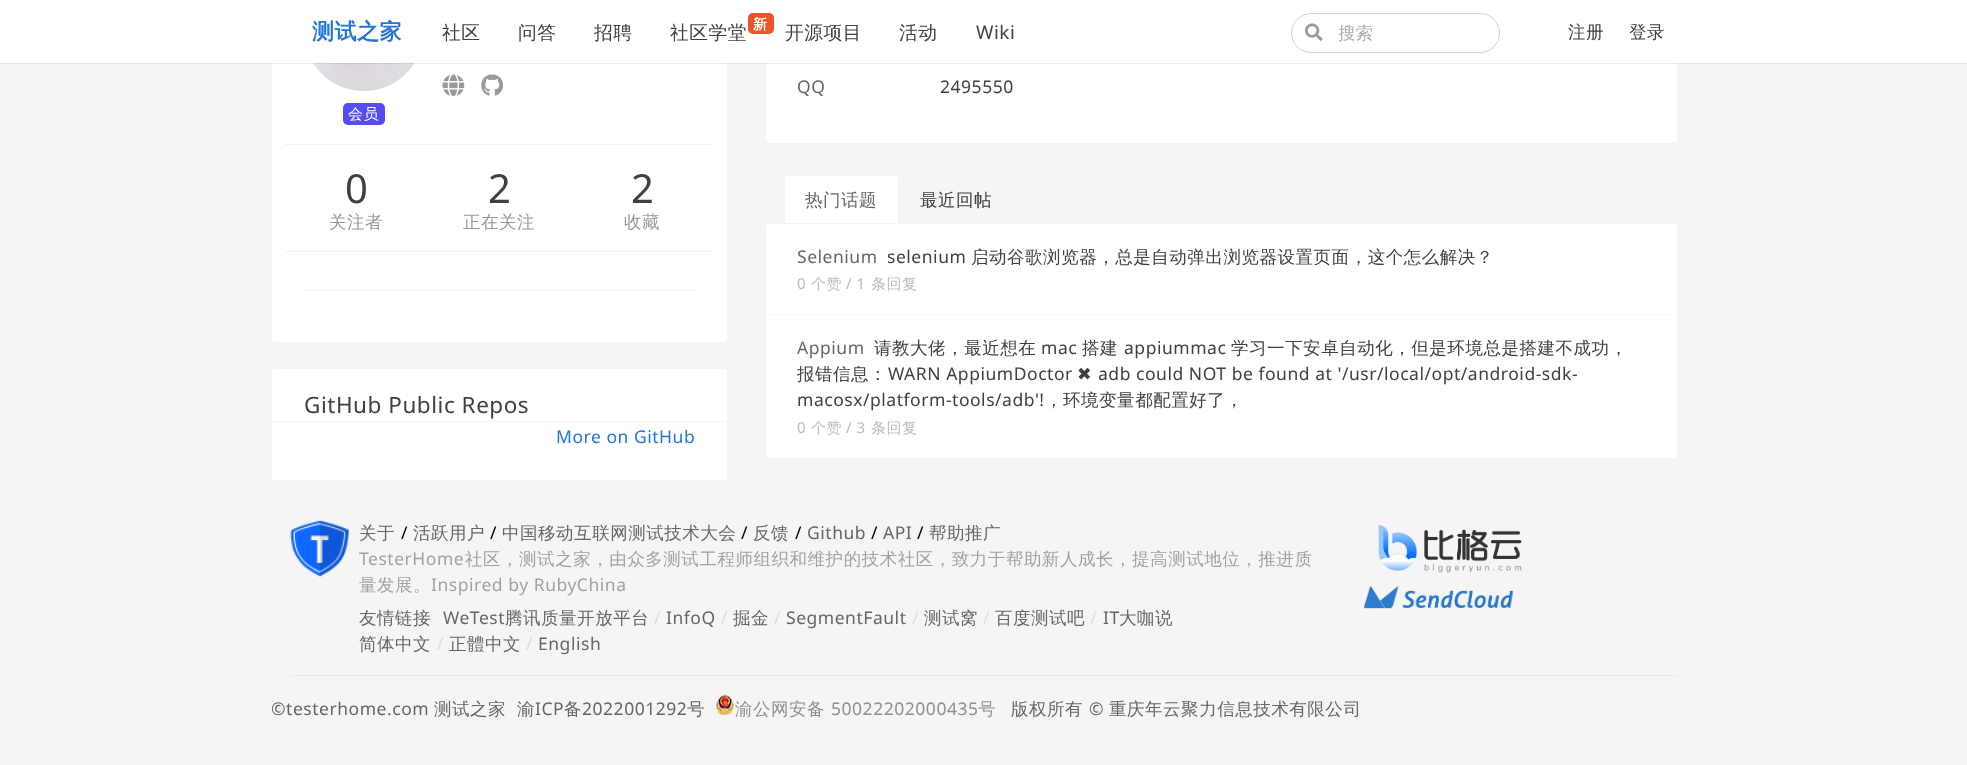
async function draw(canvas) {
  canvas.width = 1967
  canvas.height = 765
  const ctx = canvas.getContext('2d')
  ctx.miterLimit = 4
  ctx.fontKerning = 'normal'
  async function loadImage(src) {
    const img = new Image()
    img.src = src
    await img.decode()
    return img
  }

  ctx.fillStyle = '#f5f5f5'
  ctx.fillRect(0, 0, 1967, 765)
  ctx.fillStyle = '#fff'
  ctx.beginPath()
  ctx.roundRect(271, -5, 457, 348, 5)
  ctx.fill()
  ctx.beginPath()
  ctx.roundRect(271.5, -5.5, 456, 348, 4.5)
  ctx.strokeStyle = '#78828c17'
  ctx.stroke()
  ctx.drawImage(await loadImage('image3.png'), 313, 63, 102, 28)
  ctx.beginPath()
  ctx.roundRect(765, -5, 913, 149, 5)
  ctx.fill()
  ctx.beginPath()
  ctx.roundRect(765.5, -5.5, 912, 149, 4.5)
  ctx.stroke()
  ctx.fillStyle = '#00000012'
  ctx.filter = 'blur(0.5px)'
  ctx.beginPath()
  ctx.rect(0, 1, 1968, 63)
  ctx.fill()
  ctx.filter = 'none'
  ctx.fillStyle = '#fff'
  ctx.fillRect(0, 0, 1967, 63)
  ctx.letterSpacing = '0.53px'
  ctx.font = 'bold 22px WenQuanYi Zen Hei'
  ctx.fillStyle = '#2275da'
  ctx.fillText('测试之家', 312, 39)
  ctx.font = '500 18.75px WenQuanYi Zen Hei'
  ctx.fillStyle = '#404040'
  ctx.fillText('社区', 442, 39)
  ctx.fillText('问答', 518, 39)
  ctx.fillText('招聘', 594, 39)
  ctx.fillText('社区学堂', 670, 39)
  ctx.fillStyle = '#eb5424'
  ctx.beginPath()
  ctx.roundRect(748, 13, 26, 21, 5)
  ctx.fill()
  ctx.font = 'bold 14px WenQuanYi Zen Hei'
  ctx.fillStyle = '#fff'
  ctx.fillText('新', 753, 29)
  ctx.font = '500 18.75px WenQuanYi Zen Hei'
  ctx.fillStyle = '#404040'
  ctx.fillText('开源项目', 785, 39)
  ctx.fillText('活动', 899, 39)
  ctx.font = '18.75px Noto Sans'
  ctx.fillText('Wiki', 976, 39)
  ctx.beginPath()
  ctx.roundRect(1291.5, 13.5, 208, 39, 19.5)
  ctx.strokeStyle = '#ced4da'
  ctx.stroke()
  ctx.drawImage(await loadImage('image0.png'), 1305, 23, 18, 18)
  ctx.save()
  ctx.beginPath()
  ctx.rect(1339, 20, 145, 25)
  ctx.clip()
  ctx.letterSpacing = '0px'
  ctx.font = '500 17.5px WenQuanYi Zen Hei'
  ctx.fillStyle = '#aaa'
  ctx.fillText('搜索', 1338, 39)
  ctx.restore()
  ctx.font = '500 17.5px WenQuanYi Zen Hei'
  ctx.fillText('注册', 1568, 38)
  ctx.fillText('登录', 1629, 38)
  ctx.drawImage(await loadImage('image1.png'), 442, 74, 23, 23)
  ctx.drawImage(await loadImage('image2.png'), 481, 74, 22, 22)
  ctx.fillStyle = '#564cf5'
  ctx.beginPath()
  ctx.roundRect(343, 103, 42, 22, 5)
  ctx.fill()
  ctx.font = '500 15px WenQuanYi Zen Hei'
  ctx.fillStyle = '#fff'
  ctx.fillText('会员', 348, 119)
  ctx.fillStyle = '#f2f2f2'
  ctx.fillRect(285, 144, 429, 1)
  ctx.font = '40px Noto Sans'
  ctx.fillStyle = '#404040'
  ctx.fillText('0', 345, 203)
  ctx.font = '500 17.5px WenQuanYi Zen Hei'
  ctx.fillStyle = '#999'
  ctx.fillText('关注者', 329, 228)
  ctx.font = '40px Noto Sans'
  ctx.fillStyle = '#404040'
  ctx.fillText('2', 488, 203)
  ctx.font = '500 17.5px WenQuanYi Zen Hei'
  ctx.fillStyle = '#999'
  ctx.fillText('正在关注', 463, 228)
  ctx.font = '40px Noto Sans'
  ctx.fillStyle = '#404040'
  ctx.fillText('2', 631, 203)
  ctx.font = '500 17.5px WenQuanYi Zen Hei'
  ctx.fillStyle = '#999'
  ctx.fillText('收藏', 624, 228)
  ctx.fillStyle = '#f2f2f2'
  ctx.fillRect(285, 251, 429, 1)
  ctx.fillRect(304, 290, 391, 1)
  ctx.fillStyle = '#fff'
  ctx.beginPath()
  ctx.roundRect(271, 368, 457, 113, 5)
  ctx.fill()
  ctx.beginPath()
  ctx.roundRect(271.5, 368.5, 456, 112, 4.5)
  ctx.strokeStyle = '#78828c17'
  ctx.stroke()
  ctx.font = '22.5px Noto Sans'
  ctx.fillStyle = '#404040'
  ctx.fillText('GitHub Public Repos', 304, 413)
  ctx.fillStyle = '#f3f4f5'
  ctx.fillRect(273, 421, 453, 1)
  ctx.font = '17.5px Noto Sans'
  ctx.fillStyle = '#2275da'
  ctx.fillText('More on GitHub', 556, 443)
  ctx.fillStyle = '#666'
  ctx.fillText('QQ', 797, 93)
  ctx.fillStyle = '#404040'
  ctx.fillText('2495550', 940, 93)
  ctx.fillStyle = '#fff'
  ctx.beginPath()
  ctx.roundRect(784, 175, 115, 49, [5, 5, 0, 0])
  ctx.fill()
  ctx.beginPath()
  ctx.roundRect(784.5, 175.5, 114, 48, [4.5, 4.5, 0, 0])
  ctx.stroke()
  ctx.font = '500 17.5px WenQuanYi Zen Hei'
  ctx.fillStyle = '#666'
  ctx.fillText('热门话题', 805, 206)
  ctx.fillStyle = '#404040'
  ctx.fillText('最近回帖', 920, 206)
  ctx.fillStyle = '#fff'
  ctx.beginPath()
  ctx.roundRect(765, 223, 913, 236, 5)
  ctx.fill()
  ctx.beginPath()
  ctx.roundRect(765.5, 223.5, 912, 235, 4.5)
  ctx.stroke()
  ctx.fillStyle = '#f7f7f7'
  ctx.fillRect(766, 314, 910, 1)
  ctx.font = '17.5px Noto Sans'
  ctx.fillStyle = '#666'
  ctx.fillText('Selenium', 797, 263)
  ctx.fillStyle = '#404040'
  ctx.fillText('selenium', 887, 263)
  ctx.font = '500 17.5px WenQuanYi Zen Hei'
  ctx.fillText('启动谷歌浏览器，总是自动弹出浏览器设置页面，这个怎么解决？', 971, 263)
  ctx.font = '15px Noto Sans'
  ctx.fillStyle = '#bbb'
  ctx.fillText('0', 797, 289)
  ctx.font = '500 15px WenQuanYi Zen Hei'
  ctx.fillText('个赞', 811, 289)
  ctx.font = '15px Noto Sans'
  ctx.fillText('/ 1', 846, 289)
  ctx.font = '500 15px WenQuanYi Zen Hei'
  ctx.fillText('条回复', 871, 289)
  ctx.font = '17.5px Noto Sans'
  ctx.fillStyle = '#666'
  ctx.fillText('Appium', 797, 354)
  ctx.font = '500 17.5px WenQuanYi Zen Hei'
  ctx.fillStyle = '#404040'
  ctx.fillText('请教大佬，最近想在', 874, 354)
  ctx.font = '17.5px Noto Sans'
  ctx.fillText('mac', 1041, 354)
  ctx.font = '500 17.5px WenQuanYi Zen Hei'
  ctx.fillText('搭建', 1082, 354)
  ctx.font = '17.5px Noto Sans'
  ctx.fillText('appiummac', 1124, 354)
  ctx.font = '500 17.5px WenQuanYi Zen Hei'
  ctx.fillText('学习一下安卓自动化，但是环境总是搭建不成功，', 1231, 354)
  ctx.fillText('报错信息：', 797, 380)
  ctx.font = '17.5px Noto Sans'
  ctx.fillText('WARN AppiumDoctor', 888, 380)
  ctx.font = '17.5px DejaVu Sans'
  ctx.fillText('✖', 1077, 380)
  ctx.font = '17.5px Noto Sans'
  ctx.fillText('adb could NOT be found at \'/usr/local/opt/android-sdk-', 1098, 380)
  ctx.fillText('macosx/platform-tools/adb\'!', 797, 406)
  ctx.font = '500 17.5px WenQuanYi Zen Hei'
  ctx.fillText('，环境变量都配置好了，', 1045, 406)
  ctx.font = '15px Noto Sans'
  ctx.fillStyle = '#bbb'
  ctx.fillText('0', 797, 433)
  ctx.font = '500 15px WenQuanYi Zen Hei'
  ctx.fillText('个赞', 811, 433)
  ctx.font = '15px Noto Sans'
  ctx.fillText('/ 3', 846, 433)
  ctx.font = '500 15px WenQuanYi Zen Hei'
  ctx.fillText('条回复', 871, 433)
  ctx.drawImage(await loadImage('image4.png'), 290, 520, 59, 57)
  ctx.font = '500 17.5px WenQuanYi Zen Hei'
  ctx.fillStyle = '#666'
  ctx.fillText('关于', 359, 539)
  ctx.font = '17.5px Noto Sans'
  ctx.fillStyle = '#000'
  ctx.fillText('/', 401, 539)
  ctx.font = '500 17.5px WenQuanYi Zen Hei'
  ctx.fillStyle = '#666'
  ctx.fillText('活跃用户', 413, 539)
  ctx.font = '17.5px Noto Sans'
  ctx.fillStyle = '#000'
  ctx.fillText('/', 490, 539)
  ctx.font = '500 17.5px WenQuanYi Zen Hei'
  ctx.fillStyle = '#666'
  ctx.fillText('中国移动互联网测试技术大会', 502, 539)
  ctx.font = '17.5px Noto Sans'
  ctx.fillStyle = '#000'
  ctx.fillText('/', 741, 539)
  ctx.font = '500 17.5px WenQuanYi Zen Hei'
  ctx.fillStyle = '#666'
  ctx.fillText('反馈', 753, 539)
  ctx.font = '17.5px Noto Sans'
  ctx.fillStyle = '#000'
  ctx.fillText('/', 795, 539)
  ctx.fillStyle = '#666'
  ctx.fillText('Github', 807, 539)
  ctx.fillStyle = '#000'
  ctx.fillText('/', 871, 539)
  ctx.fillStyle = '#666'
  ctx.fillText('API', 883, 539)
  ctx.fillStyle = '#000'
  ctx.fillText('/', 917, 539)
  ctx.font = '500 17.5px WenQuanYi Zen Hei'
  ctx.fillStyle = '#666'
  ctx.fillText('帮助推广', 929, 539)
  ctx.font = '17.5px Noto Sans'
  ctx.fillStyle = '#9ca4a9'
  ctx.fillText('TesterHome', 359, 565)
  ctx.font = '500 17.5px WenQuanYi Zen Hei'
  ctx.fillText('社区，测试之家，由众多测试工程师组织和维护的技术社区，致力于帮助新人成长，提高测试地位，推进质', 465, 565)
  ctx.fillText('量发展。', 359, 591)
  ctx.font = '17.5px Noto Sans'
  ctx.fillText('Inspired by RubyChina', 431, 591)
  ctx.font = '500 17.5px WenQuanYi Zen Hei'
  ctx.fillStyle = '#666'
  ctx.fillText('友情链接', 359, 624)
  ctx.font = '17.5px Noto Sans'
  ctx.fillText('WeTest', 443, 624)
  ctx.font = '500 17.5px WenQuanYi Zen Hei'
  ctx.fillText('腾讯质量开放平台', 505, 624)
  ctx.font = '17.5px Noto Sans'
  ctx.fillStyle = '#ddd'
  ctx.fillText('/', 654, 624)
  ctx.fillStyle = '#666'
  ctx.fillText('InfoQ', 666, 624)
  ctx.fillStyle = '#ddd'
  ctx.fillText('/', 721, 624)
  ctx.font = '500 17.5px WenQuanYi Zen Hei'
  ctx.fillStyle = '#666'
  ctx.fillText('掘金', 733, 624)
  ctx.font = '17.5px Noto Sans'
  ctx.fillStyle = '#ddd'
  ctx.fillText('/', 774, 624)
  ctx.fillStyle = '#666'
  ctx.fillText('SegmentFault', 786, 624)
  ctx.fillStyle = '#ddd'
  ctx.fillText('/', 912, 624)
  ctx.font = '500 17.5px WenQuanYi Zen Hei'
  ctx.fillStyle = '#666'
  ctx.fillText('测试窝', 924, 624)
  ctx.font = '17.5px Noto Sans'
  ctx.fillStyle = '#ddd'
  ctx.fillText('/', 983, 624)
  ctx.font = '500 17.5px WenQuanYi Zen Hei'
  ctx.fillStyle = '#666'
  ctx.fillText('百度测试吧', 995, 624)
  ctx.font = '17.5px Noto Sans'
  ctx.fillStyle = '#ddd'
  ctx.fillText('/', 1090, 624)
  ctx.fillStyle = '#666'
  ctx.fillText('IT', 1103, 624)
  ctx.font = '500 17.5px WenQuanYi Zen Hei'
  ctx.fillText('大咖说', 1119, 624)
  ctx.fillText('简体中文', 359, 650)
  ctx.font = '17.5px Noto Sans'
  ctx.fillStyle = '#ddd'
  ctx.fillText('/', 437, 650)
  ctx.font = '500 17.5px WenQuanYi Zen Hei'
  ctx.fillStyle = '#666'
  ctx.fillText('正體中文', 449, 650)
  ctx.font = '17.5px Noto Sans'
  ctx.fillStyle = '#ddd'
  ctx.fillText('/', 526, 650)
  ctx.fillStyle = '#666'
  ctx.fillText('English', 538, 650)
  ctx.drawImage(await loadImage('image5.png'), 1378, 524, 144, 49)
  ctx.drawImage(await loadImage('image6.png'), 1363, 586, 151, 23)
  ctx.fillStyle = '#e9e9e9'
  ctx.fillRect(290, 675, 1388, 1)
  ctx.fillStyle = '#666'
  ctx.fillText('©testerhome.com', 271, 715)
  ctx.font = '500 17.5px WenQuanYi Zen Hei'
  ctx.fillText('测试之家', 434, 715)
  ctx.fillText('渝', 517, 715)
  ctx.font = '17.5px Noto Sans'
  ctx.fillText('ICP', 535, 715)
  ctx.font = '500 17.5px WenQuanYi Zen Hei'
  ctx.fillText('备', 564, 715)
  ctx.font = '17.5px Noto Sans'
  ctx.fillText('2022001292', 582, 715)
  ctx.font = '500 17.5px WenQuanYi Zen Hei'
  ctx.fillText('号', 687, 715)
  ctx.drawImage(await loadImage('image7.png'), 716, 694, 18, 21)
  ctx.fillStyle = '#909090'
  ctx.fillText('渝公网安备', 735, 715)
  ctx.font = '17.5px Noto Sans'
  ctx.fillText('50022202000435', 831, 715)
  ctx.font = '500 17.5px WenQuanYi Zen Hei'
  ctx.fillText('号', 978, 715)
  ctx.fillStyle = '#666'
  ctx.fillText('版权所有', 1011, 715)
  ctx.font = '17.5px Noto Sans'
  ctx.fillText('©', 1089, 715)
  ctx.font = '500 17.5px WenQuanYi Zen Hei'
  ctx.fillText('重庆年云聚力信息技术有限公司', 1109, 715)
}

draw(document.querySelector('canvas'))
